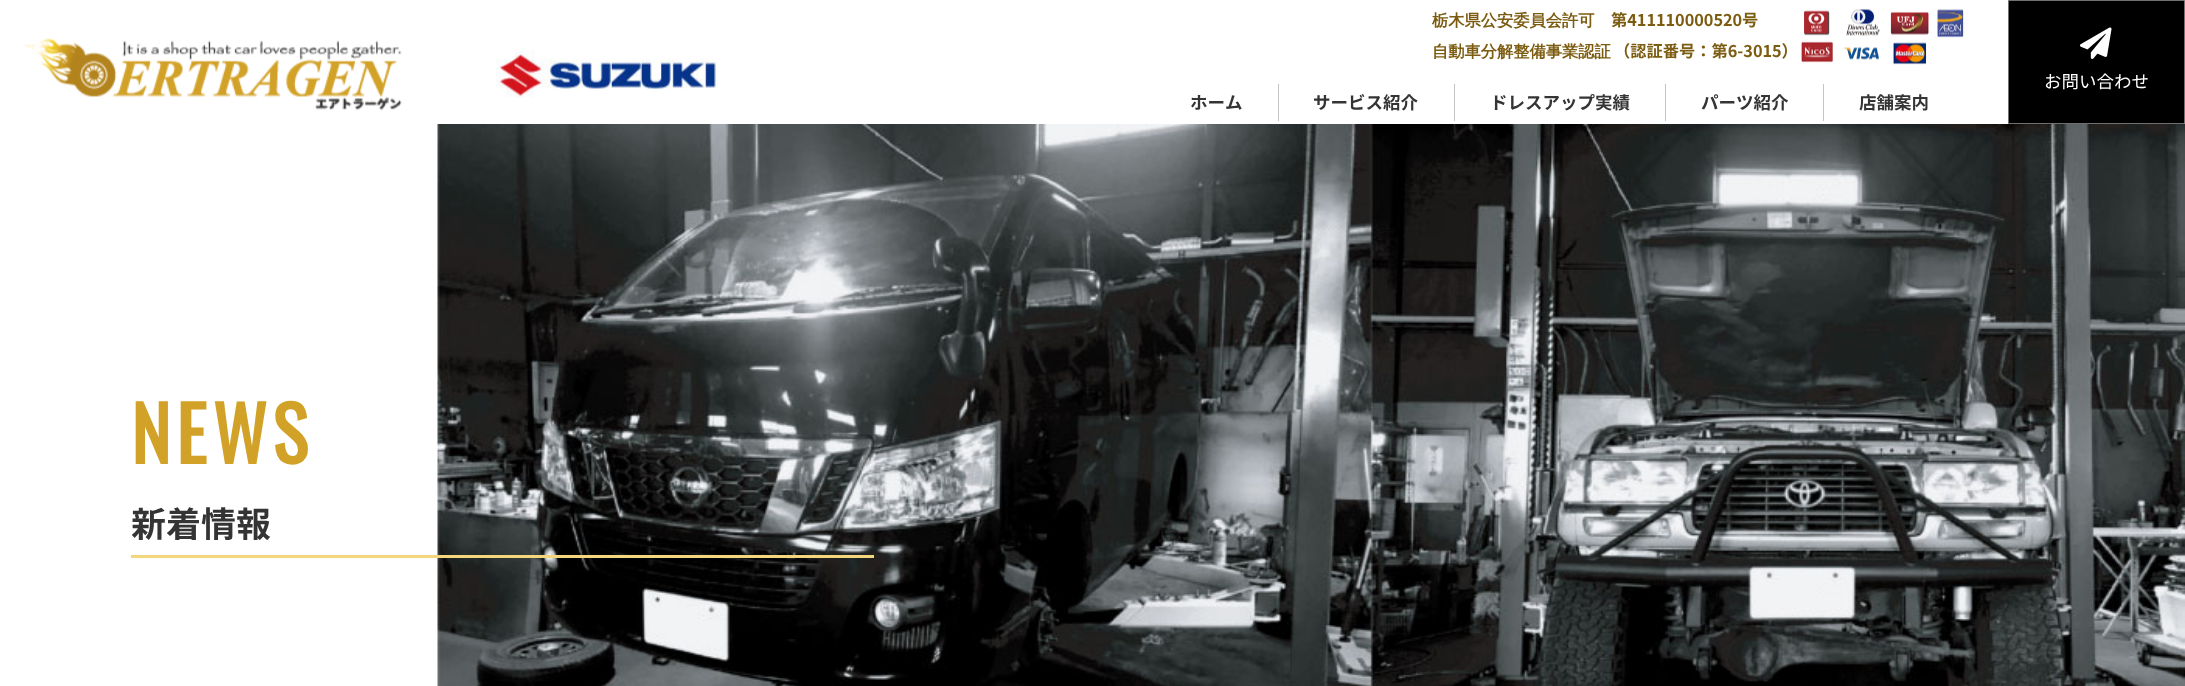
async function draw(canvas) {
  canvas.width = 2185
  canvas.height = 686
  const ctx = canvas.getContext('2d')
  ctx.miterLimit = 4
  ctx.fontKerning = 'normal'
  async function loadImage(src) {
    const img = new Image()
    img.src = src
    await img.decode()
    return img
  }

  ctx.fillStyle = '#fff'
  ctx.fillRect(0, 0, 2185, 686)
  ctx.drawImage(await loadImage('image0.png'), 25, 38, 377, 73)
  ctx.drawImage(await loadImage('image1.png'), 496, 50, 222, 48)
  ctx.font = 'bold 16.25px WenQuanYi Zen Hei'
  ctx.fillStyle = '#7c5c10'
  ctx.fillText('栃木県公安委員会許可', 1432, 26)
  ctx.font = 'bold 16.25px Noto Sans JP'
  ctx.fillText('第411110000520号', 1611, 26)
  ctx.font = 'bold 16.25px WenQuanYi Zen Hei'
  ctx.fillText('自動車分解整備事業認証', 1432, 57)
  ctx.font = 'bold 16.25px Noto Sans JP'
  ctx.fillText('（認証番号：第6-3015）', 1614, 57)
  ctx.drawImage(await loadImage('image2.png'), 1801, 9, 163, 56)
  ctx.fillStyle = '#c5c5c5'
  ctx.fillRect(1278, 84, 1, 37)
  ctx.font = 'bold 17.5px Noto Sans JP'
  ctx.fillStyle = '#343434'
  ctx.fillText('ホーム', 1190, 109)
  ctx.fillStyle = '#c5c5c5'
  ctx.fillRect(1454, 84, 1, 37)
  ctx.fillStyle = '#343434'
  ctx.fillText('サービス紹介', 1313, 109)
  ctx.fillStyle = '#c5c5c5'
  ctx.fillRect(1665, 84, 1, 37)
  ctx.fillStyle = '#343434'
  ctx.fillText('ドレスアップ実績', 1490, 109)
  ctx.fillStyle = '#c5c5c5'
  ctx.fillRect(1823, 84, 1, 37)
  ctx.fillStyle = '#343434'
  ctx.fillText('パーツ紹介', 1701, 109)
  ctx.fillText('店舗案内', 1859, 109)
  ctx.fillStyle = '#000'
  ctx.beginPath()
  ctx.rect(2008.5, 0.5, 176, 123)
  ctx.fill()
  ctx.strokeStyle = '#707070'
  ctx.stroke()
  ctx.drawImage(await loadImage('image3.png'), 2080, 27, 32, 32)
  ctx.font = '17.5px Noto Sans JP'
  ctx.fillStyle = '#fff'
  ctx.fillText('お問い合わせ', 2044, 88)
  ctx.drawImage(await loadImage('image4.png'), 437, 124, 1748, 562)
  ctx.fillStyle = '#f4d67c'
  ctx.fillRect(131, 555, 743, 3)
  ctx.letterSpacing = '5.5px'
  ctx.font = 'bold 75px Oswald'
  ctx.fillStyle = '#d2a127'
  ctx.fillText('NEWS', 131, 464)
  ctx.letterSpacing = '0px'
  ctx.font = 'bold 35px Noto Sans JP'
  ctx.fillStyle = '#343434'
  ctx.fillText('新着情報', 131, 537)
}

draw(document.querySelector('canvas'))
